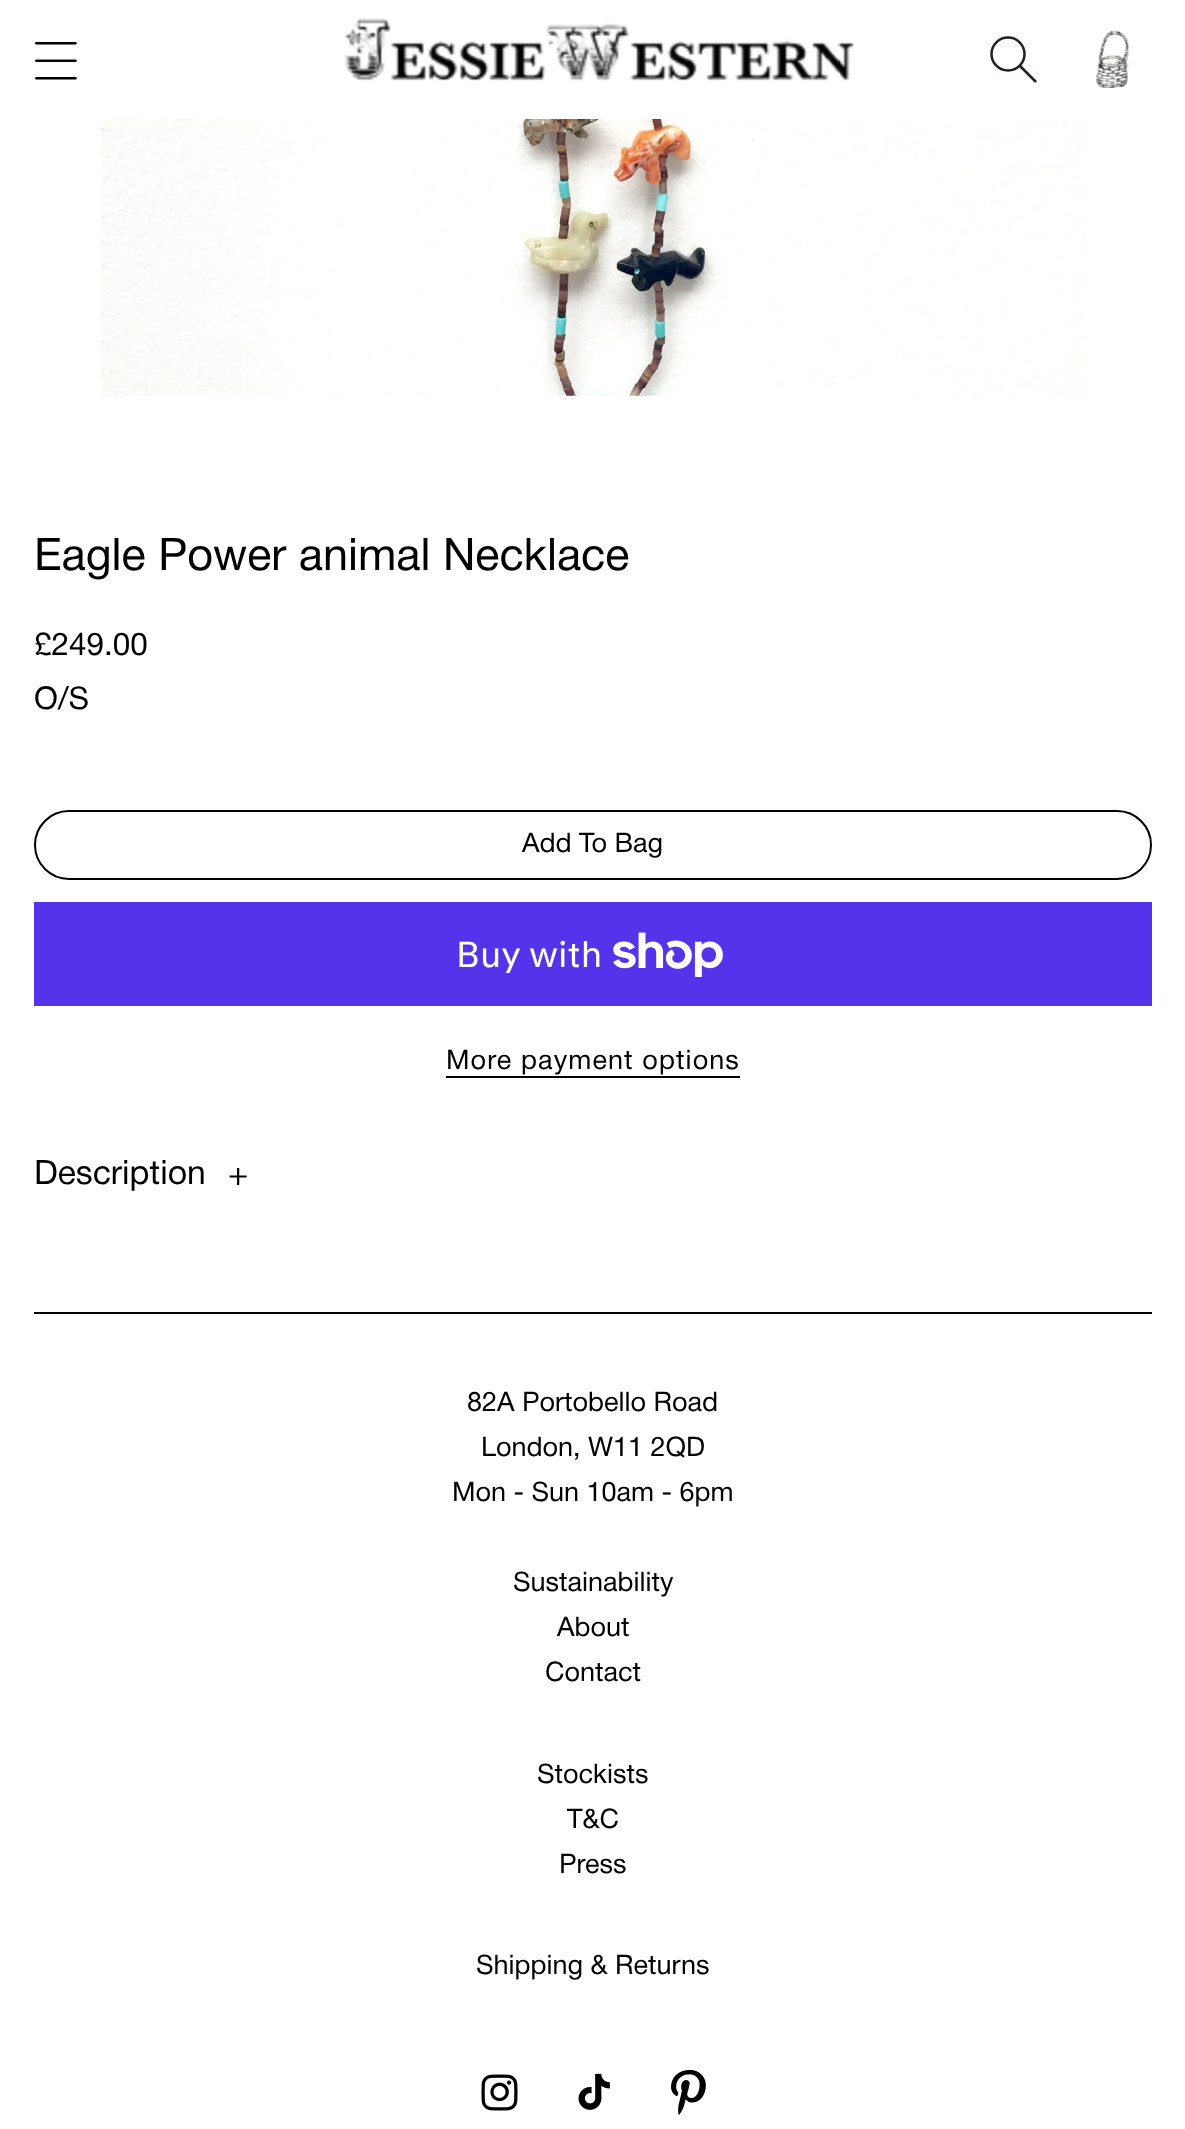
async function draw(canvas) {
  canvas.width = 1185
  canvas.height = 2129
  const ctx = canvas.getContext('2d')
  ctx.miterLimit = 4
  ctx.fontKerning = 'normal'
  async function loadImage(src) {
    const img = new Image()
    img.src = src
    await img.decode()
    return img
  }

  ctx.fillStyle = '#fff'
  ctx.fillRect(0, 0, 1185, 2129)
  ctx.drawImage(await loadImage('image0.png'), 35, 42, 42, 38)
  ctx.drawImage(await loadImage('image1.png'), 344, 18, 510, 63)
  ctx.beginPath()
  ctx.arc(1008, 54, 16.5, 0, 2 * Math.PI)
  ctx.strokeStyle = '#231f20'
  ctx.lineWidth = 2.5
  ctx.stroke()
  ctx.beginPath()
  ctx.moveTo(1036, 82)
  ctx.lineTo(1019.5, 65.5)
  ctx.stroke()
  ctx.drawImage(await loadImage('image2.png'), 1096, 30, 34, 58)
  ctx.drawImage(await loadImage('image3.png'), 101, 119, 983, 277)
  ctx.font = '45px Helvetica Neue'
  ctx.fillStyle = '#000'
  ctx.fillText('Eagle Power animal Necklace', 34, 570)
  ctx.font = '31.5px Helvetica Neue'
  ctx.fillText('£249.00', 34, 655)
  ctx.fillText('O/S', 34, 709)
  ctx.beginPath()
  ctx.roundRect(35, 811, 1116, 68, 34)
  ctx.strokeStyle = '#000'
  ctx.lineWidth = 2
  ctx.stroke()
  ctx.font = '27px Helvetica Neue'
  ctx.fillText('Add To Bag', 522, 852)
  ctx.fillStyle = '#5433eb'
  ctx.fillRect(34, 902, 1118, 104)
  ctx.font = '36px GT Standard'
  ctx.fillStyle = '#fff'
  ctx.fillText('Buy with', 456, 967)
  ctx.drawImage(await loadImage('image4.png'), 613, 932, 110, 45)
  ctx.letterSpacing = '1.1px'
  ctx.font = '27px Helvetica Neue'
  ctx.fillStyle = '#000'
  ctx.fillText('More payment options', 446, 1069)
  ctx.fillRect(446, 1076, 294, 2)
  ctx.letterSpacing = '0px'
  ctx.font = '33.75px Helvetica Neue'
  ctx.fillText('Description', 34, 1184)
  ctx.fillText('+', 228, 1185)
  ctx.fillRect(34, 1312, 1118, 2)
  ctx.font = '27px Helvetica Neue'
  ctx.fillText('82A Portobello Road', 467, 1411)
  ctx.fillText('London, W11 2QD', 481, 1456)
  ctx.fillText('Mon - Sun 10am - 6pm', 452, 1501)
  ctx.fillText('Sustainability', 513, 1591)
  ctx.fillText('About', 557, 1636)
  ctx.fillText('Contact', 545, 1681)
  ctx.fillText('Stockists', 537, 1783)
  ctx.fillText('T&C', 567, 1828)
  ctx.fillText('Press', 559, 1873)
  ctx.fillText('Shipping & Returns', 476, 1974)
  ctx.drawImage(await loadImage('image5.png'), 481, 2074, 37, 37)
  ctx.drawImage(await loadImage('image6.png'), 578, 2073, 32, 37)
  ctx.drawImage(await loadImage('image7.png'), 671, 2070, 35, 45)
}

draw(document.querySelector('canvas'))
